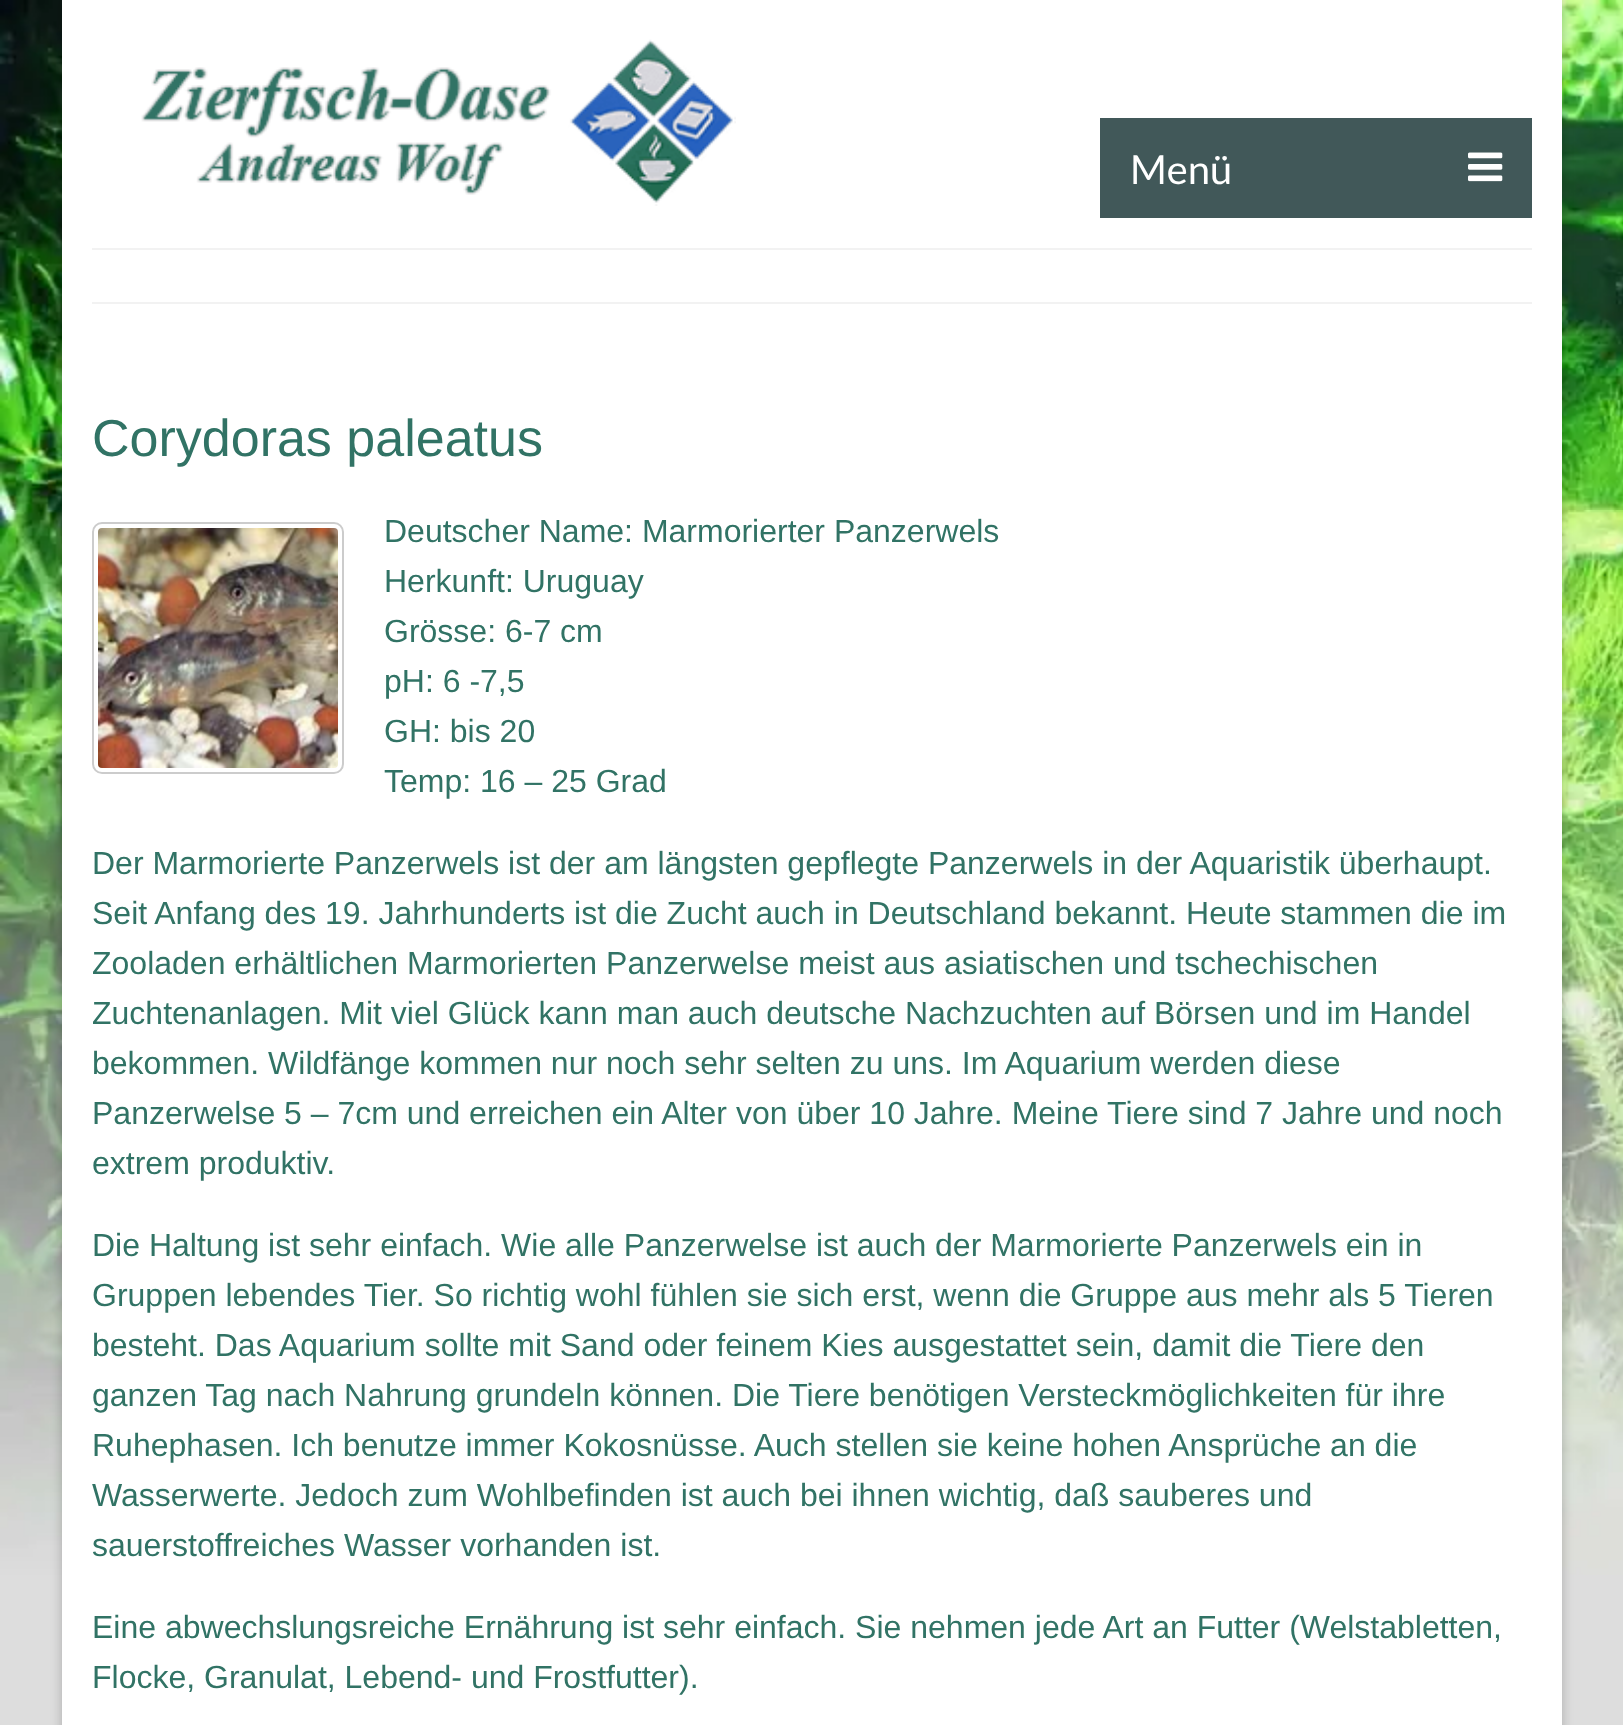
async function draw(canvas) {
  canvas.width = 1623
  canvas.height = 1725
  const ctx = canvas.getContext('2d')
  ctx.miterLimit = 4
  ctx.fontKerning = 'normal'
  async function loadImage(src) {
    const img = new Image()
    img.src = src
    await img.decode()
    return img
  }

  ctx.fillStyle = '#ddd'
  ctx.fillRect(0, 0, 1623, 1725)
  ctx.drawImage(await loadImage('image0.png'), 0, 0, 1623, 1575)
  ctx.fillStyle = '#00000029'
  ctx.filter = 'blur(5px)'
  ctx.beginPath()
  ctx.rect(60, -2, 1504, 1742)
  ctx.fill()
  ctx.filter = 'none'
  ctx.fillStyle = '#fff'
  ctx.fillRect(62, 0, 1500, 1725)
  ctx.drawImage(await loadImage('image1.png'), 141, 39, 595, 167)
  ctx.fillStyle = '#415859'
  ctx.fillRect(1100, 118, 432, 100)
  ctx.font = '40px Lato'
  ctx.fillStyle = '#fff'
  ctx.fillText('Menü', 1130, 184)
  ctx.drawImage(await loadImage('image2.png'), 1468, 152, 35, 30)
  ctx.fillStyle = '#f2f2f2'
  ctx.fillRect(92, 248, 1440, 2)
  ctx.fillRect(92, 302, 1440, 2)
  ctx.font = '52px Liberation Sans'
  ctx.fillStyle = '#317365'
  ctx.fillText('Corydoras paleatus', 92, 456)
  ctx.beginPath()
  ctx.roundRect(93, 523, 250, 250, 9)
  ctx.strokeStyle = '#ccc'
  ctx.lineWidth = 2
  ctx.stroke()
  ctx.drawImage(await loadImage('image3.png'), 98, 528, 240, 240)
  ctx.font = '32px Liberation Sans'
  ctx.fillText('Deutscher Name: Marmorierter Panzerwels', 384, 542)
  ctx.fillText('Herkunft: Uruguay', 384, 592)
  ctx.fillText('Grösse: 6-7 cm', 384, 642)
  ctx.fillText('pH: 6 -7,5', 384, 692)
  ctx.fillText('GH: bis 20', 384, 742)
  ctx.fillText('Temp: 16 – 25 Grad', 384, 792)
  ctx.fillText('Der Marmorierte Panzerwels ist der am längsten gepflegte Panzerwels in der Aquaristik überhaupt.', 92, 874)
  ctx.fillText('Seit Anfang des 19. Jahrhunderts ist die Zucht auch in Deutschland bekannt. Heute stammen die im', 92, 924)
  ctx.fillText('Zooladen erhältlichen Marmorierten Panzerwelse meist aus asiatischen und tschechischen', 92, 974)
  ctx.fillText('Zuchtenanlagen. Mit viel Glück kann man auch deutsche Nachzuchten auf Börsen und im Handel', 92, 1024)
  ctx.fillText('bekommen. Wildfänge kommen nur noch sehr selten zu uns. Im Aquarium werden diese', 92, 1074)
  ctx.fillText('Panzerwelse 5 – 7cm und erreichen ein Alter von über 10 Jahre. Meine Tiere sind 7 Jahre und noch', 92, 1124)
  ctx.fillText('extrem produktiv.', 92, 1174)
  ctx.fillText('Die Haltung ist sehr einfach. Wie alle Panzerwelse ist auch der Marmorierte Panzerwels ein in', 92, 1256)
  ctx.fillText('Gruppen lebendes Tier. So richtig wohl fühlen sie sich erst, wenn die Gruppe aus mehr als 5 Tieren', 92, 1306)
  ctx.fillText('besteht. Das Aquarium sollte mit Sand oder feinem Kies ausgestattet sein, damit die Tiere den', 92, 1356)
  ctx.fillText('ganzen Tag nach Nahrung grundeln können. Die Tiere benötigen Versteckmöglichkeiten für ihre', 92, 1406)
  ctx.fillText('Ruhephasen. Ich benutze immer Kokosnüsse. Auch stellen sie keine hohen Ansprüche an die', 92, 1456)
  ctx.fillText('Wasserwerte. Jedoch zum Wohlbefinden ist auch bei ihnen wichtig, daß sauberes und', 92, 1506)
  ctx.fillText('sauerstoffreiches Wasser vorhanden ist.', 92, 1556)
  ctx.fillText('Eine abwechslungsreiche Ernährung ist sehr einfach. Sie nehmen jede Art an Futter (Welstabletten,', 92, 1638)
  ctx.fillText('Flocke, Granulat, Lebend- und Frostfutter).', 92, 1688)
}

draw(document.querySelector('canvas'))
